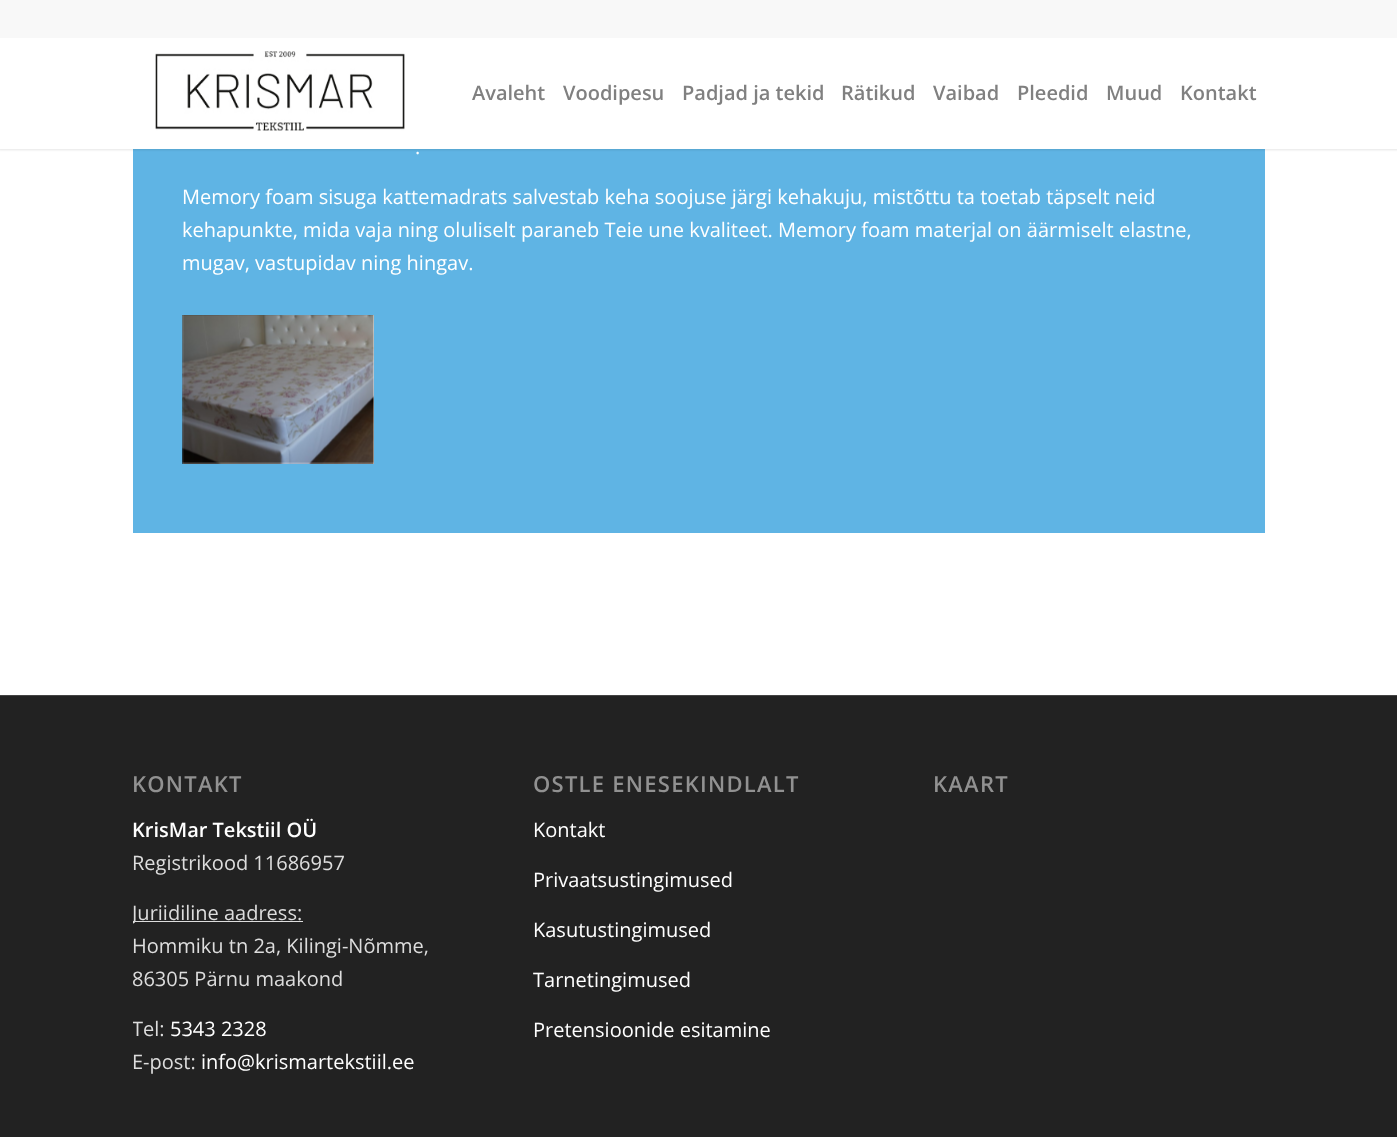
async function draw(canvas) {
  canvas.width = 1397
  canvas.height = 1137
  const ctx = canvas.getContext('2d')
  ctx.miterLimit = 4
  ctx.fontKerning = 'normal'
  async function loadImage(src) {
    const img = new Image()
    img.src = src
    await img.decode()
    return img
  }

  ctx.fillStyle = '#fff'
  ctx.fillRect(0, 0, 1397, 1137)
  ctx.fillStyle = '#5fb4e4'
  ctx.fillRect(133, 149, 1132, 384)
  ctx.fillStyle = '#0000001a'
  ctx.filter = 'blur(1px)'
  ctx.beginPath()
  ctx.rect(-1, -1, 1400, 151)
  ctx.fill()
  ctx.filter = 'none'
  ctx.fillStyle = '#f8f8f8'
  ctx.fillRect(0, 0, 1397, 38)
  ctx.fillStyle = '#fff'
  ctx.fillRect(0, 38, 1397, 111)
  ctx.drawImage(await loadImage('image0.png'), 155, 51, 250, 80)
  ctx.font = '600 20px Open Sans'
  ctx.fillStyle = '#808080'
  ctx.fillText('Avaleht', 472, 100)
  ctx.fillText('Voodipesu', 563, 100)
  ctx.fillText('Padjad ja tekid', 682, 100)
  ctx.fillText('Rätikud', 841, 100)
  ctx.fillText('Vaibad', 933, 100)
  ctx.fillText('Pleedid', 1017, 100)
  ctx.fillText('Muud', 1106, 100)
  ctx.fillText('Kontakt', 1180, 100)
  ctx.font = '20px Open Sans'
  ctx.fillStyle = '#fff'
  ctx.fillText('.', 415, 154)
  ctx.fillText('Memory foam sisuga kattemadrats salvestab keha soojuse järgi kehakuju, mistõttu ta toetab täpselt neid', 182, 204)
  ctx.fillText('kehapunkte, mida vaja ning oluliselt paraneb Teie une kvaliteet. Memory foam materjal on äärmiselt elastne,', 182, 237)
  ctx.fillText('mugav, vastupidav ning hingav.', 182, 270)
  ctx.fillRect(183, 315, 191, 149)
  ctx.drawImage(await loadImage('image1.png'), 182, 315, 192, 149)
  ctx.fillStyle = '#222'
  ctx.fillRect(0, 696, 1397, 441)
  ctx.fillStyle = '#444'
  ctx.fillRect(0, 695, 1397, 1)
  ctx.letterSpacing = '1.25px'
  ctx.font = '600 22px Open Sans'
  ctx.fillStyle = '#919191'
  ctx.fillText('KONTAKT', 132, 792)
  ctx.letterSpacing = '0px'
  ctx.font = '600 20px Open Sans'
  ctx.fillStyle = '#fff'
  ctx.fillText('KrisMar Tekstiil OÜ', 132, 837)
  ctx.font = '20px Open Sans'
  ctx.fillStyle = '#ddd'
  ctx.fillText('Registrikood 11686957', 132, 870)
  ctx.fillRect(133, 921, 170, 1)
  ctx.save()
  ctx.beginPath()
  ctx.rect(133, 753, 332, 342)
  ctx.clip()
  ctx.fillText('Juriidiline aadress:', 132, 920)
  ctx.restore()
  ctx.fillText('Hommiku tn 2a, Kilingi-Nõmme,', 132, 953)
  ctx.fillText('86305 Pärnu maakond', 132, 986)
  ctx.save()
  ctx.beginPath()
  ctx.rect(133, 753, 332, 342)
  ctx.clip()
  ctx.fillText('Tel:', 132, 1036)
  ctx.restore()
  ctx.fillStyle = '#fff'
  ctx.fillText('5343 2328', 170, 1036)
  ctx.fillStyle = '#ddd'
  ctx.fillText('E-post:', 132, 1069)
  ctx.fillStyle = '#fff'
  ctx.fillText('info@krismartekstiil.ee', 201, 1069)
  ctx.letterSpacing = '1.25px'
  ctx.font = '600 22px Open Sans'
  ctx.fillStyle = '#919191'
  ctx.fillText('OSTLE ENESEKINDLALT', 533, 792)
  ctx.letterSpacing = '0px'
  ctx.font = '20px Open Sans'
  ctx.fillStyle = '#fff'
  ctx.fillText('Kontakt', 533, 837)
  ctx.fillText('Privaatsustingimused', 533, 887)
  ctx.fillText('Kasutustingimused', 533, 937)
  ctx.fillText('Tarnetingimused', 533, 987)
  ctx.fillText('Pretensioonide esitamine', 533, 1037)
  ctx.letterSpacing = '1.25px'
  ctx.font = '600 22px Open Sans'
  ctx.fillStyle = '#919191'
  ctx.fillText('KAART', 933, 792)
}

draw(document.querySelector('canvas'))
